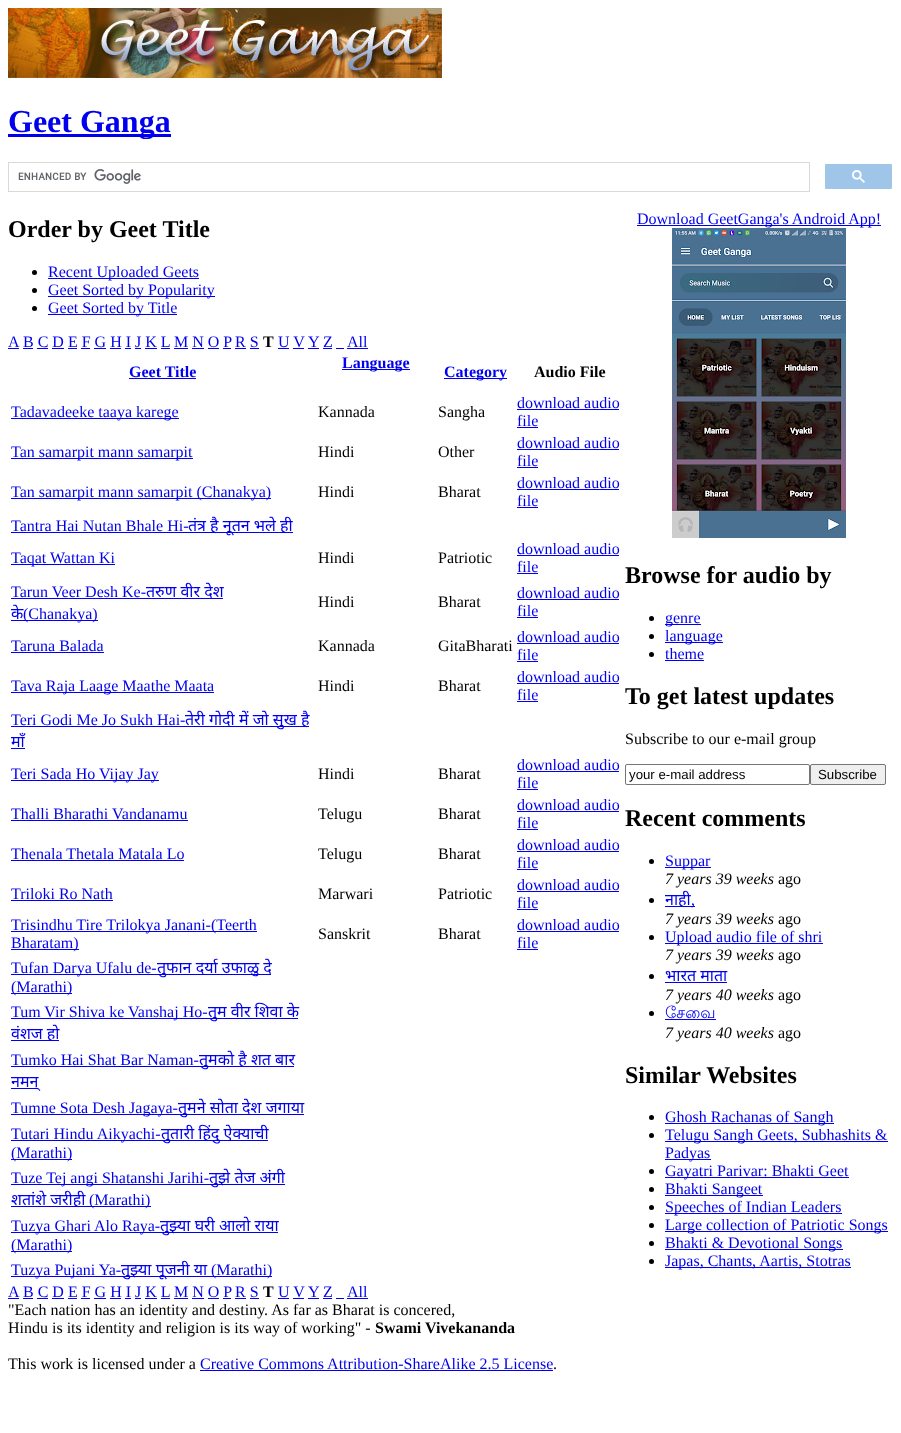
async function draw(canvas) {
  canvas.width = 901
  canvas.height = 1433
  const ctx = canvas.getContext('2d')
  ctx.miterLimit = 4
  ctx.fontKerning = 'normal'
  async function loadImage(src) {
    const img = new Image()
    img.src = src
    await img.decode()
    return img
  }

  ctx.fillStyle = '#fff'
  ctx.fillRect(0, 0, 901, 1433)
  ctx.drawImage(await loadImage('image0.png'), 8, 8, 434, 70)
  ctx.fillStyle = '#00e'
  ctx.fillRect(8, 134, 163, 3)
  ctx.font = 'bold 32px Liberation Serif'
  ctx.fillText('Geet Ganga', 8, 132)
  ctx.strokeStyle = '#d9d9d9'
  ctx.strokeRect(8.5, 162.5, 801, 29)
  ctx.drawImage(await loadImage('image1.png'), 18, 169, 123, 15)
  ctx.fillStyle = '#9fc5e8'
  ctx.beginPath()
  ctx.roundRect(824.5, 163.5, 68, 26, 1.5)
  ctx.fill()
  ctx.strokeStyle = '#fff'
  ctx.stroke()
  ctx.drawImage(await loadImage('image2.png'), 852, 170, 13, 13)
  ctx.font = 'bold 24px Liberation Serif'
  ctx.fillStyle = '#000'
  ctx.fillText('Order by Geet Title', 8, 237)
  ctx.beginPath()
  ctx.arc(34.5, 272.5, 2.5, 0, 2 * Math.PI)
  ctx.fill()
  ctx.fillStyle = '#00e'
  ctx.fillRect(48, 278, 151, 1)
  ctx.font = '16px Liberation Serif'
  ctx.fillText('Recent Uploaded Geets', 48, 277)
  ctx.fillStyle = '#000'
  ctx.beginPath()
  ctx.arc(34.5, 290.5, 2.5, 0, 2 * Math.PI)
  ctx.fill()
  ctx.fillStyle = '#00e'
  ctx.fillRect(48, 296, 167, 1)
  ctx.fillText('Geet Sorted by Popularity', 48, 295)
  ctx.fillStyle = '#000'
  ctx.beginPath()
  ctx.arc(34.5, 308.5, 2.5, 0, 2 * Math.PI)
  ctx.fill()
  ctx.fillStyle = '#00e'
  ctx.fillRect(48, 314, 129, 1)
  ctx.fillText('Geet Sorted by Title', 48, 313)
  ctx.fillText('A', 8, 347)
  ctx.fillRect(8, 348, 11, 1)
  ctx.fillText('B C D E F G H I J K L', 23, 347)
  ctx.fillRect(23, 348, 10, 1)
  ctx.fillRect(37, 348, 11, 1)
  ctx.fillRect(52, 348, 12, 1)
  ctx.fillRect(68, 348, 9, 1)
  ctx.fillRect(81, 348, 9, 1)
  ctx.fillRect(94, 348, 12, 1)
  ctx.fillRect(110, 348, 11, 1)
  ctx.fillRect(125, 348, 6, 1)
  ctx.fillRect(135, 348, 6, 1)
  ctx.fillRect(145, 348, 12, 1)
  ctx.fillRect(161, 348, 9, 1)
  ctx.fillText('M N O P', 174, 347)
  ctx.fillRect(174, 348, 14, 1)
  ctx.fillRect(192, 348, 12, 1)
  ctx.fillRect(208, 348, 11, 1)
  ctx.fillRect(223, 348, 8, 1)
  ctx.fillText('R S', 235, 347)
  ctx.fillRect(235, 348, 11, 1)
  ctx.fillRect(250, 348, 9, 1)
  ctx.font = 'bold 16px Liberation Serif'
  ctx.fillStyle = '#000'
  ctx.fillText('T', 263, 347)
  ctx.font = '16px Liberation Serif'
  ctx.fillStyle = '#00e'
  ctx.fillText('U V', 278, 347)
  ctx.fillRect(278, 348, 11, 1)
  ctx.fillRect(293, 348, 11, 1)
  ctx.fillText('Y', 308, 347)
  ctx.fillRect(308, 348, 11, 1)
  ctx.fillText('Z', 323, 347)
  ctx.fillRect(323, 348, 9, 1)
  ctx.fillRect(336, 348, 8, 1)
  ctx.fillText('All', 347, 347)
  ctx.fillRect(347, 348, 21, 1)
  ctx.font = 'bold 16px Liberation Serif'
  ctx.fillText('Geet Title', 129, 377)
  ctx.fillRect(129, 378, 67, 1)
  ctx.fillRect(342, 369, 68, 1)
  ctx.fillText('Language', 342, 368)
  ctx.fillRect(444, 378, 63, 1)
  ctx.fillText('Category', 444, 377)
  ctx.fillStyle = '#000'
  ctx.fillText('Audio File', 534, 377)
  ctx.fillStyle = '#00e'
  ctx.fillRect(11, 418, 168, 1)
  ctx.font = '16px Liberation Serif'
  ctx.fillText('Tadavadeeke taaya karege', 11, 417)
  ctx.fillStyle = '#000'
  ctx.fillText('Kannada', 318, 417)
  ctx.fillText('Sangha', 438, 417)
  ctx.fillStyle = '#00e'
  ctx.fillText('download audio', 517, 408)
  ctx.fillRect(517, 409, 102, 1)
  ctx.fillText('file', 517, 426)
  ctx.fillRect(517, 427, 21, 1)
  ctx.fillRect(11, 458, 182, 1)
  ctx.fillText('Tan samarpit mann samarpit', 11, 457)
  ctx.fillStyle = '#000'
  ctx.fillText('Hindi', 318, 457)
  ctx.fillText('Other', 438, 457)
  ctx.fillStyle = '#00e'
  ctx.fillText('download audio', 517, 448)
  ctx.fillRect(517, 449, 102, 1)
  ctx.fillText('file', 517, 466)
  ctx.fillRect(517, 467, 21, 1)
  ctx.fillRect(11, 498, 260, 1)
  ctx.fillText('Tan samarpit mann samarpit (Chanakya)', 11, 497)
  ctx.fillStyle = '#000'
  ctx.fillText('Hindi', 318, 497)
  ctx.fillText('Bharat', 438, 497)
  ctx.fillStyle = '#00e'
  ctx.fillText('download audio', 517, 488)
  ctx.fillRect(517, 489, 102, 1)
  ctx.fillText('file', 517, 506)
  ctx.fillRect(517, 507, 21, 1)
  ctx.fillText('Tantra Hai Nutan Bhale Hi-', 11, 531)
  ctx.fillRect(11, 532, 282, 1)
  ctx.font = '16px Noto Sans'
  ctx.fillText('तंत्र है नूतन भले ही', 188, 531)
  ctx.fillRect(11, 564, 104, 1)
  ctx.font = '16px Liberation Serif'
  ctx.fillText('Taqat Wattan Ki', 11, 563)
  ctx.fillStyle = '#000'
  ctx.fillText('Hindi', 318, 563)
  ctx.fillText('Patriotic', 438, 563)
  ctx.fillStyle = '#00e'
  ctx.fillText('download audio', 517, 554)
  ctx.fillRect(517, 555, 102, 1)
  ctx.fillText('file', 517, 572)
  ctx.fillRect(517, 573, 21, 1)
  ctx.fillText('Tarun Veer Desh Ke-', 11, 597)
  ctx.fillRect(11, 598, 212, 1)
  ctx.font = '16px Noto Sans'
  ctx.fillText('तरुण वीर देश', 146, 597)
  ctx.fillText('के', 11, 619)
  ctx.fillRect(11, 620, 87, 1)
  ctx.font = '16px Liberation Serif'
  ctx.fillText('(Chanakya)', 23, 619)
  ctx.fillStyle = '#000'
  ctx.fillText('Hindi', 318, 607)
  ctx.fillText('Bharat', 438, 607)
  ctx.fillStyle = '#00e'
  ctx.fillText('download audio', 517, 598)
  ctx.fillRect(517, 599, 102, 1)
  ctx.fillText('file', 517, 616)
  ctx.fillRect(517, 617, 21, 1)
  ctx.fillText('Taruna Balada', 11, 651)
  ctx.fillRect(11, 652, 93, 1)
  ctx.fillStyle = '#000'
  ctx.fillText('Kannada', 318, 651)
  ctx.fillText('GitaBharati', 438, 651)
  ctx.fillStyle = '#00e'
  ctx.fillText('download audio', 517, 642)
  ctx.fillRect(517, 643, 102, 1)
  ctx.fillText('file', 517, 660)
  ctx.fillRect(517, 661, 21, 1)
  ctx.fillRect(11, 692, 203, 1)
  ctx.fillText('Tava Raja Laage Maathe Maata', 11, 691)
  ctx.fillStyle = '#000'
  ctx.fillText('Hindi', 318, 691)
  ctx.fillText('Bharat', 438, 691)
  ctx.fillStyle = '#00e'
  ctx.fillText('download audio', 517, 682)
  ctx.fillRect(517, 683, 102, 1)
  ctx.fillText('file', 517, 700)
  ctx.fillRect(517, 701, 21, 1)
  ctx.fillText('Teri Godi Me Jo Sukh Hai-', 11, 725)
  ctx.fillRect(11, 726, 298, 1)
  ctx.font = '16px Noto Sans'
  ctx.fillText('तेरी गोदी में जो सुख है', 185, 725)
  ctx.fillText('माँ', 11, 747)
  ctx.fillRect(11, 748, 14, 1)
  ctx.fillRect(11, 780, 148, 1)
  ctx.font = '16px Liberation Serif'
  ctx.fillText('Teri Sada Ho Vijay Jay', 11, 779)
  ctx.fillStyle = '#000'
  ctx.fillText('Hindi', 318, 779)
  ctx.fillText('Bharat', 438, 779)
  ctx.fillStyle = '#00e'
  ctx.fillText('download audio', 517, 770)
  ctx.fillRect(517, 771, 102, 1)
  ctx.fillText('file', 517, 788)
  ctx.fillRect(517, 789, 21, 1)
  ctx.fillText('Thalli Bharathi Vandanamu', 11, 819)
  ctx.fillRect(11, 820, 177, 1)
  ctx.fillStyle = '#000'
  ctx.fillText('Telugu', 318, 819)
  ctx.fillText('Bharat', 438, 819)
  ctx.fillStyle = '#00e'
  ctx.fillText('download audio', 517, 810)
  ctx.fillRect(517, 811, 102, 1)
  ctx.fillText('file', 517, 828)
  ctx.fillRect(517, 829, 21, 1)
  ctx.fillText('Thenala Thetala Matala Lo', 11, 859)
  ctx.fillRect(11, 860, 173, 1)
  ctx.fillStyle = '#000'
  ctx.fillText('Telugu', 318, 859)
  ctx.fillText('Bharat', 438, 859)
  ctx.fillStyle = '#00e'
  ctx.fillText('download audio', 517, 850)
  ctx.fillRect(517, 851, 102, 1)
  ctx.fillText('file', 517, 868)
  ctx.fillRect(517, 869, 21, 1)
  ctx.fillText('Triloki Ro Nath', 11, 899)
  ctx.fillRect(11, 900, 102, 1)
  ctx.fillStyle = '#000'
  ctx.fillText('Marwari', 318, 899)
  ctx.fillText('Patriotic', 438, 899)
  ctx.fillStyle = '#00e'
  ctx.fillText('download audio', 517, 890)
  ctx.fillRect(517, 891, 102, 1)
  ctx.fillText('file', 517, 908)
  ctx.fillRect(517, 909, 21, 1)
  ctx.fillRect(11, 931, 246, 1)
  ctx.fillText('Trisindhu Tire Trilokya Janani-(Teerth', 11, 930)
  ctx.fillRect(11, 949, 68, 1)
  ctx.fillText('Bharatam)', 11, 948)
  ctx.fillStyle = '#000'
  ctx.fillText('Sanskrit', 318, 939)
  ctx.fillText('Bharat', 438, 939)
  ctx.fillStyle = '#00e'
  ctx.fillText('download audio', 517, 930)
  ctx.fillRect(517, 931, 102, 1)
  ctx.fillText('file', 517, 948)
  ctx.fillRect(517, 949, 21, 1)
  ctx.fillRect(11, 974, 260, 1)
  ctx.fillText('Tufan Darya Ufalu de-', 11, 973)
  ctx.font = '16px Noto Sans'
  ctx.fillText('तुफान दर्या उफाळु दे', 157, 973)
  ctx.fillRect(11, 993, 61, 1)
  ctx.font = '16px Liberation Serif'
  ctx.fillText('(Marathi)', 11, 992)
  ctx.fillRect(11, 1018, 287, 1)
  ctx.fillText('Tum Vir Shiva ke Vanshaj Ho-', 11, 1017)
  ctx.font = '16px Noto Sans'
  ctx.fillText('तुम वीर शिवा के', 208, 1017)
  ctx.fillRect(11, 1040, 48, 1)
  ctx.fillText('वंशज हो', 11, 1039)
  ctx.font = '16px Liberation Serif'
  ctx.fillText('Tumko Hai Shat Bar Naman-', 11, 1065)
  ctx.fillRect(11, 1066, 283, 1)
  ctx.font = '16px Noto Sans'
  ctx.fillText('तुमको है शत बार', 199, 1065)
  ctx.fillRect(11, 1088, 27, 1)
  ctx.fillText('नमन्', 11, 1087)
  ctx.fillRect(11, 1114, 293, 1)
  ctx.font = '16px Liberation Serif'
  ctx.fillText('Tumne Sota Desh Jagaya-', 11, 1113)
  ctx.font = '16px Noto Sans'
  ctx.fillText('तुमने सोता देश जगाया', 178, 1113)
  ctx.fillRect(11, 1140, 257, 1)
  ctx.font = '16px Liberation Serif'
  ctx.fillText('Tutari Hindu Aikyachi-', 11, 1139)
  ctx.font = '16px Noto Sans'
  ctx.fillText('तुतारी हिंदु ऐक्याची', 161, 1139)
  ctx.fillRect(11, 1159, 61, 1)
  ctx.font = '16px Liberation Serif'
  ctx.fillText('(Marathi)', 11, 1158)
  ctx.fillRect(11, 1184, 274, 1)
  ctx.fillText('Tuze Tej angi Shatanshi Jarihi-', 11, 1183)
  ctx.font = '16px Noto Sans'
  ctx.fillText('तुझे तेज अंगी', 209, 1183)
  ctx.fillRect(11, 1206, 140, 1)
  ctx.fillText('शतांशे जरीही', 11, 1205)
  ctx.font = '16px Liberation Serif'
  ctx.fillText('(Marathi)', 89, 1205)
  ctx.fillRect(11, 1232, 267, 1)
  ctx.fillText('Tuzya Ghari Alo Raya-', 11, 1231)
  ctx.font = '16px Noto Sans'
  ctx.fillText('तुझ्या घरी आलो राया', 160, 1231)
  ctx.fillRect(11, 1251, 61, 1)
  ctx.font = '16px Liberation Serif'
  ctx.fillText('(Marathi)', 11, 1250)
  ctx.fillRect(11, 1276, 261, 1)
  ctx.fillText('Tuzya Pujani Ya-', 11, 1275)
  ctx.font = '16px Noto Sans'
  ctx.fillText('तुझ्या पूजनी या', 121, 1275)
  ctx.font = '16px Liberation Serif'
  ctx.fillText('(Marathi)', 211, 1275)
  ctx.fillText('A', 8, 1297)
  ctx.fillRect(8, 1298, 11, 1)
  ctx.fillText('B C D E F G H I J K L', 23, 1297)
  ctx.fillRect(23, 1298, 10, 1)
  ctx.fillRect(37, 1298, 11, 1)
  ctx.fillRect(52, 1298, 12, 1)
  ctx.fillRect(68, 1298, 9, 1)
  ctx.fillRect(81, 1298, 9, 1)
  ctx.fillRect(94, 1298, 12, 1)
  ctx.fillRect(110, 1298, 11, 1)
  ctx.fillRect(125, 1298, 6, 1)
  ctx.fillRect(135, 1298, 6, 1)
  ctx.fillRect(145, 1298, 12, 1)
  ctx.fillRect(161, 1298, 9, 1)
  ctx.fillText('M N O P', 174, 1297)
  ctx.fillRect(174, 1298, 14, 1)
  ctx.fillRect(192, 1298, 12, 1)
  ctx.fillRect(208, 1298, 11, 1)
  ctx.fillRect(223, 1298, 8, 1)
  ctx.fillText('R S', 235, 1297)
  ctx.fillRect(235, 1298, 11, 1)
  ctx.fillRect(250, 1298, 9, 1)
  ctx.font = 'bold 16px Liberation Serif'
  ctx.fillStyle = '#000'
  ctx.fillText('T', 263, 1297)
  ctx.font = '16px Liberation Serif'
  ctx.fillStyle = '#00e'
  ctx.fillText('U V', 278, 1297)
  ctx.fillRect(278, 1298, 11, 1)
  ctx.fillRect(293, 1298, 11, 1)
  ctx.fillText('Y', 308, 1297)
  ctx.fillRect(308, 1298, 11, 1)
  ctx.fillText('Z', 323, 1297)
  ctx.fillRect(323, 1298, 9, 1)
  ctx.fillRect(336, 1298, 8, 1)
  ctx.fillText('All', 347, 1297)
  ctx.fillRect(347, 1298, 21, 1)
  ctx.fillRect(637, 225, 244, 1)
  ctx.fillText('Download GeetGanga\'s Android App!', 637, 224)
  ctx.drawImage(await loadImage('image3.png'), 672, 228, 174, 310)
  ctx.font = 'bold 24px Liberation Serif'
  ctx.fillStyle = '#000'
  ctx.fillText('Browse for audio by', 625, 583)
  ctx.beginPath()
  ctx.arc(651.5, 618.5, 2.5, 0, 2 * Math.PI)
  ctx.fill()
  ctx.fillStyle = '#00e'
  ctx.fillRect(665, 624, 36, 1)
  ctx.font = '16px Liberation Serif'
  ctx.fillText('genre', 665, 623)
  ctx.fillStyle = '#000'
  ctx.beginPath()
  ctx.arc(651.5, 636.5, 2.5, 0, 2 * Math.PI)
  ctx.fill()
  ctx.fillStyle = '#00e'
  ctx.fillRect(665, 642, 58, 1)
  ctx.fillText('language', 665, 641)
  ctx.fillStyle = '#000'
  ctx.beginPath()
  ctx.arc(651.5, 654.5, 2.5, 0, 2 * Math.PI)
  ctx.fill()
  ctx.fillStyle = '#00e'
  ctx.fillText('theme', 665, 659)
  ctx.fillRect(665, 660, 39, 1)
  ctx.font = 'bold 24px Liberation Serif'
  ctx.fillStyle = '#000'
  ctx.fillText('To get latest updates', 625, 704)
  ctx.font = '16px Liberation Serif'
  ctx.fillText('Subscribe to our e-mail group', 625, 744)
  ctx.beginPath()
  ctx.roundRect(625.5, 764.5, 184, 20, 1.5)
  ctx.strokeStyle = '#767676'
  ctx.stroke()
  ctx.font = '13.25px Liberation Sans'
  ctx.fillText('your e-mail address', 629, 779)
  ctx.fillStyle = '#efefef'
  ctx.beginPath()
  ctx.roundRect(810.5, 764.5, 75, 20, 1.5)
  ctx.fill()
  ctx.stroke()
  ctx.fillStyle = '#000'
  ctx.fillText('Subscribe', 818, 779)
  ctx.font = 'bold 24px Liberation Serif'
  ctx.fillText('Recent comments', 625, 826)
  ctx.beginPath()
  ctx.arc(651.5, 861.5, 2.5, 0, 2 * Math.PI)
  ctx.fill()
  ctx.fillStyle = '#00e'
  ctx.fillRect(665, 867, 46, 1)
  ctx.font = '16px Liberation Serif'
  ctx.fillText('Suppar', 665, 866)
  ctx.font = 'italic 16px Liberation Serif'
  ctx.fillStyle = '#000'
  ctx.fillText('7 years 39 weeks', 665, 884)
  ctx.font = '16px Liberation Serif'
  ctx.fillText('ago', 778, 884)
  ctx.beginPath()
  ctx.arc(651.5, 900.5, 2.5, 0, 2 * Math.PI)
  ctx.fill()
  ctx.fillStyle = '#00e'
  ctx.fillRect(665, 906, 30, 1)
  ctx.font = '16px Noto Sans'
  ctx.fillText('नाही', 665, 905)
  ctx.font = '16px Liberation Serif'
  ctx.fillText(',', 691, 905)
  ctx.font = 'italic 16px Liberation Serif'
  ctx.fillStyle = '#000'
  ctx.fillText('7 years 39 weeks', 665, 924)
  ctx.font = '16px Liberation Serif'
  ctx.fillText('ago', 778, 924)
  ctx.beginPath()
  ctx.arc(651.5, 937.5, 2.5, 0, 2 * Math.PI)
  ctx.fill()
  ctx.fillStyle = '#00e'
  ctx.fillRect(665, 943, 158, 1)
  ctx.fillText('Upload audio file of shri', 665, 942)
  ctx.font = 'italic 16px Liberation Serif'
  ctx.fillStyle = '#000'
  ctx.fillText('7 years 39 weeks', 665, 960)
  ctx.font = '16px Liberation Serif'
  ctx.fillText('ago', 778, 960)
  ctx.beginPath()
  ctx.arc(651.5, 976.5, 2.5, 0, 2 * Math.PI)
  ctx.fill()
  ctx.font = '16px Noto Sans'
  ctx.fillStyle = '#00e'
  ctx.fillText('भारत माता', 665, 981)
  ctx.fillRect(665, 982, 62, 1)
  ctx.font = 'italic 16px Liberation Serif'
  ctx.fillStyle = '#000'
  ctx.fillText('7 years 40 weeks', 665, 1000)
  ctx.font = '16px Liberation Serif'
  ctx.fillText('ago', 778, 1000)
  ctx.beginPath()
  ctx.arc(651.5, 1013.5, 2.5, 0, 2 * Math.PI)
  ctx.fill()
  ctx.font = '16px Lohit Tamil'
  ctx.fillStyle = '#00e'
  ctx.fillText('சேவை', 665, 1018)
  ctx.fillRect(665, 1019, 51, 1)
  ctx.font = 'italic 16px Liberation Serif'
  ctx.fillStyle = '#000'
  ctx.fillText('7 years 40 weeks', 665, 1038)
  ctx.font = '16px Liberation Serif'
  ctx.fillText('ago', 778, 1038)
  ctx.font = 'bold 24px Liberation Serif'
  ctx.fillText('Similar Websites', 625, 1083)
  ctx.beginPath()
  ctx.arc(651.5, 1117.5, 2.5, 0, 2 * Math.PI)
  ctx.fill()
  ctx.fillStyle = '#00e'
  ctx.fillRect(665, 1123, 169, 1)
  ctx.font = '16px Liberation Serif'
  ctx.fillText('Ghosh Rachanas of Sangh', 665, 1122)
  ctx.fillStyle = '#000'
  ctx.beginPath()
  ctx.arc(651.5, 1135.5, 2.5, 0, 2 * Math.PI)
  ctx.fill()
  ctx.fillStyle = '#00e'
  ctx.fillRect(665, 1141, 223, 1)
  ctx.fillText('Telugu Sangh Geets, Subhashits &', 665, 1140)
  ctx.fillRect(665, 1159, 46, 1)
  ctx.fillText('Padyas', 665, 1158)
  ctx.fillStyle = '#000'
  ctx.beginPath()
  ctx.arc(651.5, 1171.5, 2.5, 0, 2 * Math.PI)
  ctx.fill()
  ctx.fillStyle = '#00e'
  ctx.fillRect(665, 1177, 184, 1)
  ctx.fillText('Gayatri Parivar: Bhakti Geet', 665, 1176)
  ctx.fillStyle = '#000'
  ctx.beginPath()
  ctx.arc(651.5, 1189.5, 2.5, 0, 2 * Math.PI)
  ctx.fill()
  ctx.fillStyle = '#00e'
  ctx.fillRect(665, 1195, 98, 1)
  ctx.fillText('Bhakti Sangeet', 665, 1194)
  ctx.fillStyle = '#000'
  ctx.beginPath()
  ctx.arc(651.5, 1207.5, 2.5, 0, 2 * Math.PI)
  ctx.fill()
  ctx.fillStyle = '#00e'
  ctx.fillRect(665, 1213, 177, 1)
  ctx.fillText('Speeches of Indian Leaders', 665, 1212)
  ctx.fillStyle = '#000'
  ctx.beginPath()
  ctx.arc(651.5, 1225.5, 2.5, 0, 2 * Math.PI)
  ctx.fill()
  ctx.fillStyle = '#00e'
  ctx.fillRect(665, 1231, 223, 1)
  ctx.fillText('Large collection of Patriotic Songs', 665, 1230)
  ctx.fillStyle = '#000'
  ctx.beginPath()
  ctx.arc(651.5, 1243.5, 2.5, 0, 2 * Math.PI)
  ctx.fill()
  ctx.fillStyle = '#00e'
  ctx.fillRect(665, 1249, 178, 1)
  ctx.fillText('Bhakti & Devotional Songs', 665, 1248)
  ctx.fillStyle = '#000'
  ctx.beginPath()
  ctx.arc(651.5, 1261.5, 2.5, 0, 2 * Math.PI)
  ctx.fill()
  ctx.fillStyle = '#00e'
  ctx.fillRect(665, 1267, 186, 1)
  ctx.fillText('Japas, Chants, Aartis, Stotras', 665, 1266)
  ctx.fillStyle = '#000'
  ctx.fillText('"Each nation has an identity and destiny. As far as Bharat is concered,', 8, 1315)
  ctx.fillText('Hindu is its identity and religion is its way of working" -', 8, 1333)
  ctx.font = 'bold 16px Liberation Serif'
  ctx.fillText('Swami Vivekananda', 375, 1333)
  ctx.font = '16px Liberation Serif'
  ctx.fillText('This work is licensed under a', 8, 1369)
  ctx.fillStyle = '#00e'
  ctx.fillText('Creative Commons Attribution-ShareAlike 2.5 License', 200, 1369)
  ctx.fillRect(200, 1370, 353, 1)
  ctx.fillStyle = '#000'
  ctx.fillText('.', 553, 1369)
}

draw(document.querySelector('canvas'))
